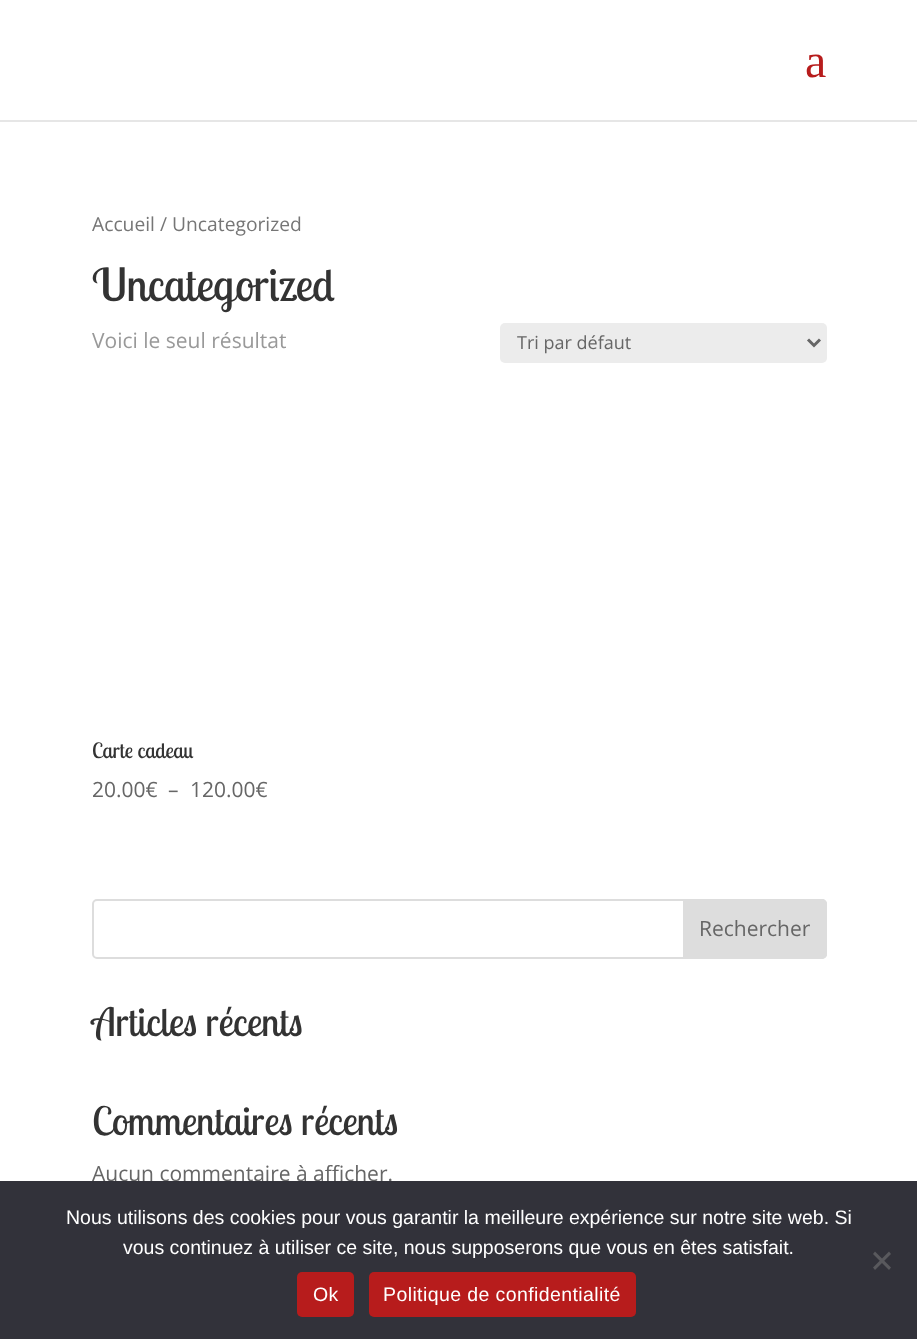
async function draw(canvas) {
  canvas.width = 917
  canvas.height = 1339
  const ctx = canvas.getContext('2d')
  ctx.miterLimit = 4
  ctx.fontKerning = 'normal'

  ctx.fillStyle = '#fff'
  ctx.fillRect(0, 0, 917, 1339)
  ctx.fillStyle = '#e6e6e6'
  ctx.fillRect(0, 120, 917, 2)
  ctx.font = '48px Liberation Serif'
  ctx.fillStyle = '#b71c1c'
  ctx.fillText('a', 805, 77)
  ctx.font = '19.25px Open Sans'
  ctx.fillStyle = '#767676'
  ctx.fillText('Accueil / Uncategorized', 92, 231)
  ctx.font = '45px Lobster Two'
  ctx.fillStyle = '#333'
  ctx.fillText('Uncategorized', 92, 301)
  ctx.font = '21px Open Sans'
  ctx.fillStyle = '#999'
  ctx.fillText('Voici le seul résultat', 92, 348)
  ctx.fillStyle = '#ececec'
  ctx.beginPath()
  ctx.roundRect(500, 323, 327, 40, 5)
  ctx.fill()
  ctx.beginPath()
  ctx.moveTo(808, 339.5)
  ctx.lineTo(814, 345.5)
  ctx.lineTo(820, 339.5)
  ctx.strokeStyle = '#666'
  ctx.lineWidth = 3
  ctx.stroke()
  ctx.font = '18px Open Sans'
  ctx.fillStyle = '#666'
  ctx.fillText('Tri par défaut', 517, 349)
  ctx.font = '21px Lobster Two'
  ctx.fillStyle = '#333'
  ctx.fillText('Carte cadeau', 92, 758)
  ctx.font = '21px Open Sans'
  ctx.fillStyle = '#666'
  ctx.fillText('20.00€', 92, 797)
  ctx.fillText('–', 168, 797)
  ctx.fillText('120.00€', 190, 797)
  ctx.beginPath()
  ctx.roundRect(93, 900, 733, 58, 4)
  ctx.strokeStyle = '#ddd'
  ctx.lineWidth = 2
  ctx.stroke()
  ctx.fillStyle = '#ddd'
  ctx.beginPath()
  ctx.roundRect(684, 900, 142, 58, [0, 4, 4, 0])
  ctx.fill()
  ctx.stroke()
  ctx.fillStyle = '#666'
  ctx.fillText('Rechercher', 699, 936)
  ctx.font = '39px Lobster Two'
  ctx.fillStyle = '#333'
  ctx.fillText('Articles récents', 92, 1036)
  ctx.fillText('Commentaires récents', 92, 1135)
  ctx.font = '21px Open Sans'
  ctx.fillStyle = '#666'
  ctx.fillText('Aucun commentaire à afficher.', 92, 1181)
  ctx.fillStyle = '#32323a'
  ctx.fillRect(0, 1181, 917, 158)
  ctx.font = '19.5px Liberation Sans'
  ctx.fillStyle = '#fff'
  ctx.fillText('Nous utilisons des cookies pour vous garantir la meilleure expérience sur notre site web. Si', 66, 1224)
  ctx.fillText('vous continuez à utiliser ce site, nous supposerons que vous en êtes satisfait.', 123, 1254)
  ctx.fillStyle = '#59595d'
  ctx.beginPath()
  ctx.moveTo(889, 1251.5)
  ctx.lineTo(891, 1254)
  ctx.lineTo(875, 1270)
  ctx.lineTo(873, 1267.5)
  ctx.closePath()
  ctx.fill()
  ctx.beginPath()
  ctx.moveTo(873, 1254)
  ctx.lineTo(875, 1251.5)
  ctx.lineTo(891, 1267.5)
  ctx.lineTo(889, 1270)
  ctx.closePath()
  ctx.fill()
  ctx.fillStyle = '#b71c1c'
  ctx.beginPath()
  ctx.roundRect(297, 1272, 57, 45, 5)
  ctx.fill()
  ctx.letterSpacing = '0.4px'
  ctx.fillStyle = '#fff'
  ctx.fillText('Ok', 313, 1301)
  ctx.fillStyle = '#b71c1c'
  ctx.beginPath()
  ctx.roundRect(369, 1272, 267, 45, 5)
  ctx.fill()
  ctx.fillStyle = '#fff'
  ctx.fillText('Politique de confidentialité', 383, 1301)
}

draw(document.querySelector('canvas'))
